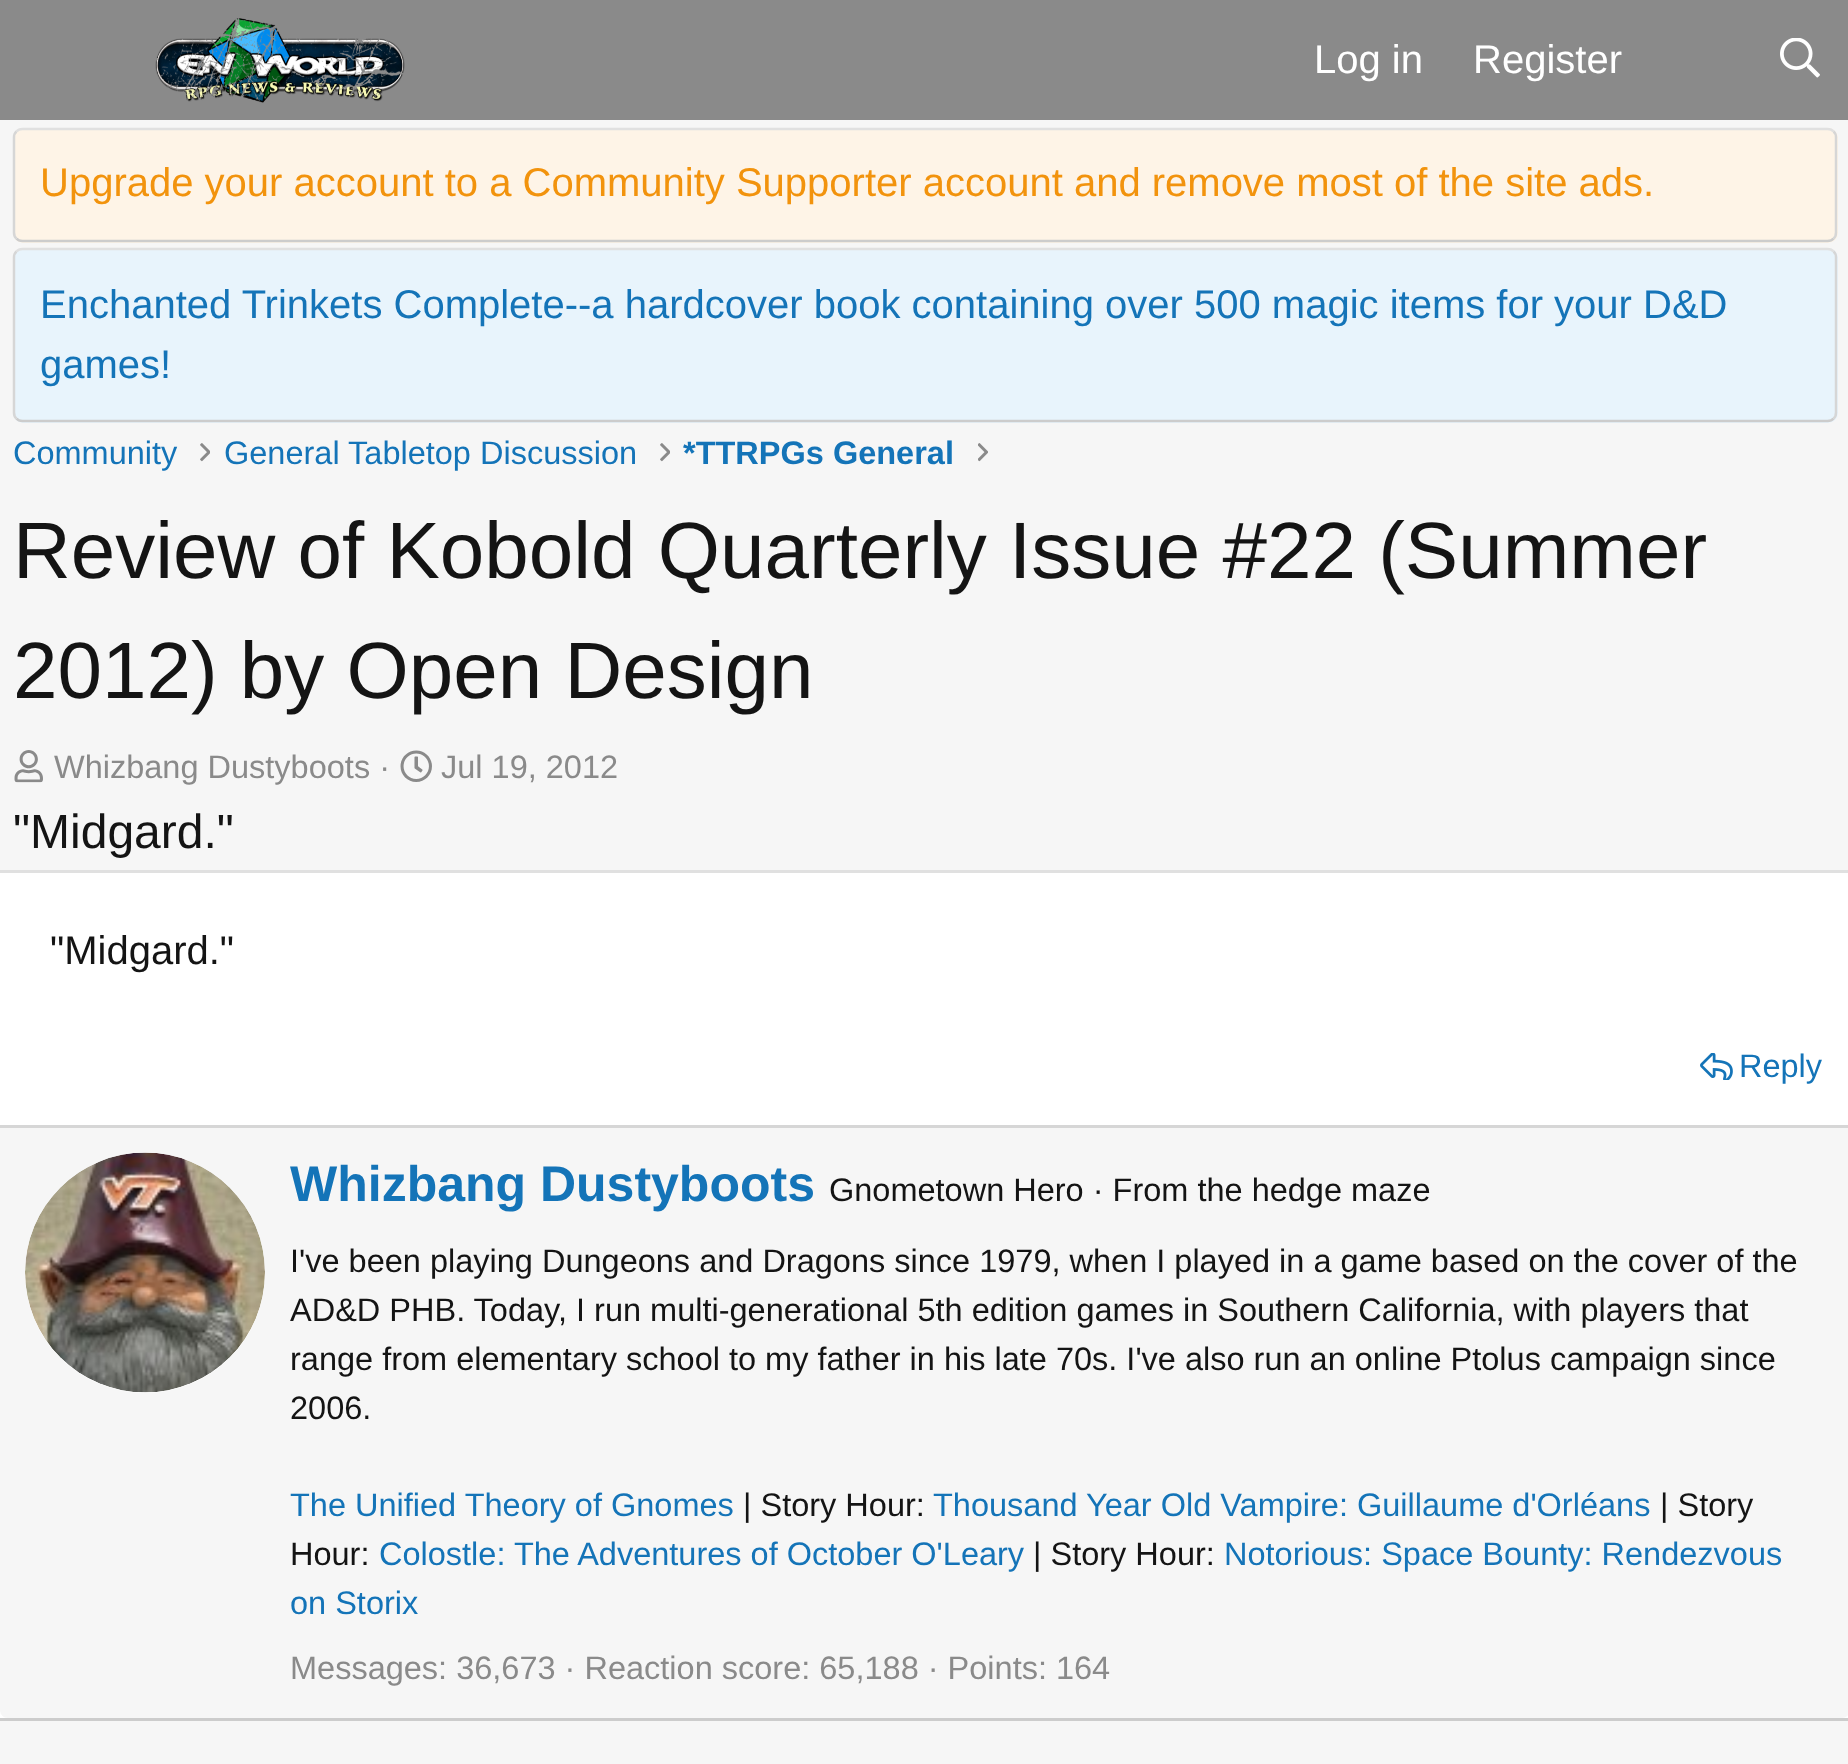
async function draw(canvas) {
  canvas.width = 1848
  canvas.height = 1764
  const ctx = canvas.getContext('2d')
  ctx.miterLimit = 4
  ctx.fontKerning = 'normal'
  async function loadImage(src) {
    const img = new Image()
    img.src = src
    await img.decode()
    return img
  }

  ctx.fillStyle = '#f6f6f6'
  ctx.fillRect(0, 0, 1848, 1764)
  ctx.fillStyle = '#8a8a8a'
  ctx.fillRect(0, 0, 1848, 120)
  ctx.drawImage(await loadImage('image0.png'), 155, 18, 250, 85)
  ctx.font = '40px Liberation Sans'
  ctx.fillStyle = '#fff'
  ctx.fillText('Log in', 1314, 73)
  ctx.fillText('Register', 1473, 73)
  ctx.drawImage(await loadImage('image1.png'), 1780, 38, 40, 40)
  ctx.fillStyle = '#fef4e7'
  ctx.beginPath()
  ctx.roundRect(13, 128, 1825, 115, 10)
  ctx.fill()
  ctx.beginPath()
  ctx.moveTo(16.5, 131.5)
  ctx.bezierCurveTo(18, 129.5, 20, 129, 22.5, 129)
  ctx.lineTo(1827.5, 129)
  ctx.bezierCurveTo(1830, 129, 1832, 129.5, 1833.5, 131.5)
  ctx.strokeStyle = '#e0e0e0'
  ctx.lineWidth = 2.5
  ctx.stroke()
  ctx.beginPath()
  ctx.moveTo(1833.5, 131.5)
  ctx.bezierCurveTo(1835.5, 133, 1836, 135, 1836, 137.5)
  ctx.lineTo(1836, 232.5)
  ctx.bezierCurveTo(1836, 235, 1835.5, 237, 1833.5, 238.5)
  ctx.strokeStyle = '#d6d6d6'
  ctx.stroke()
  ctx.beginPath()
  ctx.moveTo(1833.5, 238.5)
  ctx.bezierCurveTo(1832, 240.5, 1830, 241, 1827.5, 241)
  ctx.lineTo(22.5, 241)
  ctx.bezierCurveTo(20, 241, 18, 240.5, 16.5, 238.5)
  ctx.strokeStyle = '#ccc'
  ctx.stroke()
  ctx.beginPath()
  ctx.moveTo(16.5, 238.5)
  ctx.bezierCurveTo(14.5, 237, 14, 235, 14, 232.5)
  ctx.lineTo(14, 137.5)
  ctx.bezierCurveTo(14, 135, 14.5, 133, 16.5, 131.5)
  ctx.strokeStyle = '#d6d6d6'
  ctx.stroke()
  ctx.fillStyle = '#f2930d'
  ctx.fillText('Upgrade your account to a Community Supporter account and remove most of the site ads.', 40, 196)
  ctx.fillStyle = '#e8f4fc'
  ctx.beginPath()
  ctx.roundRect(13, 248, 1825, 175, 10)
  ctx.fill()
  ctx.beginPath()
  ctx.moveTo(16.5, 251.5)
  ctx.bezierCurveTo(18, 249.5, 20, 249, 22.5, 249)
  ctx.lineTo(1827.5, 249)
  ctx.bezierCurveTo(1830, 249, 1832, 249.5, 1833.5, 251.5)
  ctx.strokeStyle = '#e0e0e0'
  ctx.stroke()
  ctx.beginPath()
  ctx.moveTo(1833.5, 251.5)
  ctx.bezierCurveTo(1835.5, 253, 1836, 255, 1836, 257.5)
  ctx.lineTo(1836, 412.5)
  ctx.bezierCurveTo(1836, 415, 1835.5, 417, 1833.5, 418.5)
  ctx.strokeStyle = '#d6d6d6'
  ctx.stroke()
  ctx.beginPath()
  ctx.moveTo(1833.5, 418.5)
  ctx.bezierCurveTo(1832, 420.5, 1830, 421, 1827.5, 421)
  ctx.lineTo(22.5, 421)
  ctx.bezierCurveTo(20, 421, 18, 420.5, 16.5, 418.5)
  ctx.strokeStyle = '#ccc'
  ctx.stroke()
  ctx.beginPath()
  ctx.moveTo(16.5, 418.5)
  ctx.bezierCurveTo(14.5, 417, 14, 415, 14, 412.5)
  ctx.lineTo(14, 257.5)
  ctx.bezierCurveTo(14, 255, 14.5, 253, 16.5, 251.5)
  ctx.strokeStyle = '#d6d6d6'
  ctx.stroke()
  ctx.fillStyle = '#1474b8'
  ctx.fillText('Enchanted Trinkets Complete--a hardcover book containing over 500 magic items for your D&D', 40, 318)
  ctx.fillText('games!', 40, 378)
  ctx.font = '32.5px Liberation Sans'
  ctx.fillText('Community', 13, 464)
  ctx.drawImage(await loadImage('image2.png'), 200, 443, 10, 19)
  ctx.fillText('General Tabletop Discussion', 224, 464)
  ctx.drawImage(await loadImage('image2.png'), 660, 443, 10, 19)
  ctx.font = 'bold 32.5px Liberation Sans'
  ctx.fillText('*TTRPGs General', 683, 464)
  ctx.drawImage(await loadImage('image3.png'), 978, 443, 10, 19)
  ctx.font = '80px Liberation Sans'
  ctx.fillStyle = '#141414'
  ctx.fillText('Review of Kobold Quarterly Issue #22 (Summer', 13, 578)
  ctx.fillText('2012) by Open Design', 13, 698)
  ctx.drawImage(await loadImage('image4.png'), 14, 750, 29, 33)
  ctx.font = '32.5px Liberation Sans'
  ctx.fillStyle = '#8a8a8a'
  ctx.fillText('Whizbang Dustyboots ·', 54, 778)
  ctx.drawImage(await loadImage('image5.png'), 400, 750, 32, 32)
  ctx.fillText('Jul 19, 2012', 441, 778)
  ctx.font = '48px Liberation Sans'
  ctx.fillStyle = '#141414'
  ctx.fillText('"Midgard."', 13, 848)
  ctx.fillStyle = '#fff'
  ctx.fillRect(0, 873, 1848, 845)
  ctx.fillStyle = '#e0e0e0'
  ctx.fillRect(0, 870, 1848, 3)
  ctx.fillStyle = '#ccc'
  ctx.fillRect(0, 1718, 1848, 3)
  ctx.font = '40px Liberation Sans'
  ctx.fillStyle = '#141414'
  ctx.fillText('"Midgard."', 50, 964)
  ctx.drawImage(await loadImage('image6.png'), 1700, 1053, 33, 27)
  ctx.font = '32.5px Liberation Sans'
  ctx.fillStyle = '#1474b8'
  ctx.fillText('Reply', 1739, 1077)
  ctx.fillStyle = '#f6f6f6'
  ctx.beginPath()
  ctx.moveTo(0, 1125)
  ctx.lineTo(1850, 1125)
  ctx.lineTo(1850, 1710)
  ctx.bezierCurveTo(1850, 1714.5, 1846.5, 1718, 1842, 1718)
  ctx.lineTo(8, 1718)
  ctx.bezierCurveTo(3.5, 1718, 0, 1714.5, 0, 1710)
  ctx.closePath()
  ctx.fill()
  ctx.fillStyle = '#d6d6d6'
  ctx.fillRect(0, 1125, 1848, 3)
  ctx.fillStyle = '#fff'
  ctx.beginPath()
  ctx.arc(145, 1273, 120, 0, 2 * Math.PI)
  ctx.fill()
  ctx.drawImage(await loadImage('image7.png'), 25, 1152, 240, 241)
  ctx.font = 'bold 50px Liberation Sans'
  ctx.fillStyle = '#1474b8'
  ctx.fillText('Whizbang Dustyboots', 290, 1201)
  ctx.font = '32.5px Liberation Sans'
  ctx.fillStyle = '#141414'
  ctx.fillText('Gnometown Hero · From the hedge maze', 829, 1201)
  ctx.fillText('I\'ve been playing Dungeons and Dragons since 1979, when I played in a game based on the cover of the', 290, 1272)
  ctx.fillText('AD&D PHB. Today, I run multi-generational 5th edition games in Southern California, with players that', 290, 1321)
  ctx.fillText('range from elementary school to my father in his late 70s. I\'ve also run an online Ptolus campaign since', 290, 1370)
  ctx.fillText('2006.', 290, 1419)
  ctx.fillStyle = '#1474b8'
  ctx.fillText('The Unified Theory of Gnomes', 290, 1516)
  ctx.fillStyle = '#141414'
  ctx.fillText('| Story Hour:', 743, 1516)
  ctx.fillStyle = '#1474b8'
  ctx.fillText('Thousand Year Old Vampire: Guillaume d\'Orléans', 933, 1516)
  ctx.fillStyle = '#141414'
  ctx.fillText('| Story', 1660, 1516)
  ctx.fillText('Hour:', 290, 1565)
  ctx.fillStyle = '#1474b8'
  ctx.fillText('Colostle: The Adventures of October O\'Leary', 379, 1565)
  ctx.fillStyle = '#141414'
  ctx.fillText('| Story Hour:', 1033, 1565)
  ctx.fillStyle = '#1474b8'
  ctx.fillText('Notorious: Space Bounty: Rendezvous', 1224, 1565)
  ctx.fillText('on Storix', 290, 1614)
  ctx.fillStyle = '#8a8a8a'
  ctx.fillText('Messages: 36,673 · Reaction score: 65,188 · Points: 164', 290, 1679)
}

draw(document.querySelector('canvas'))
